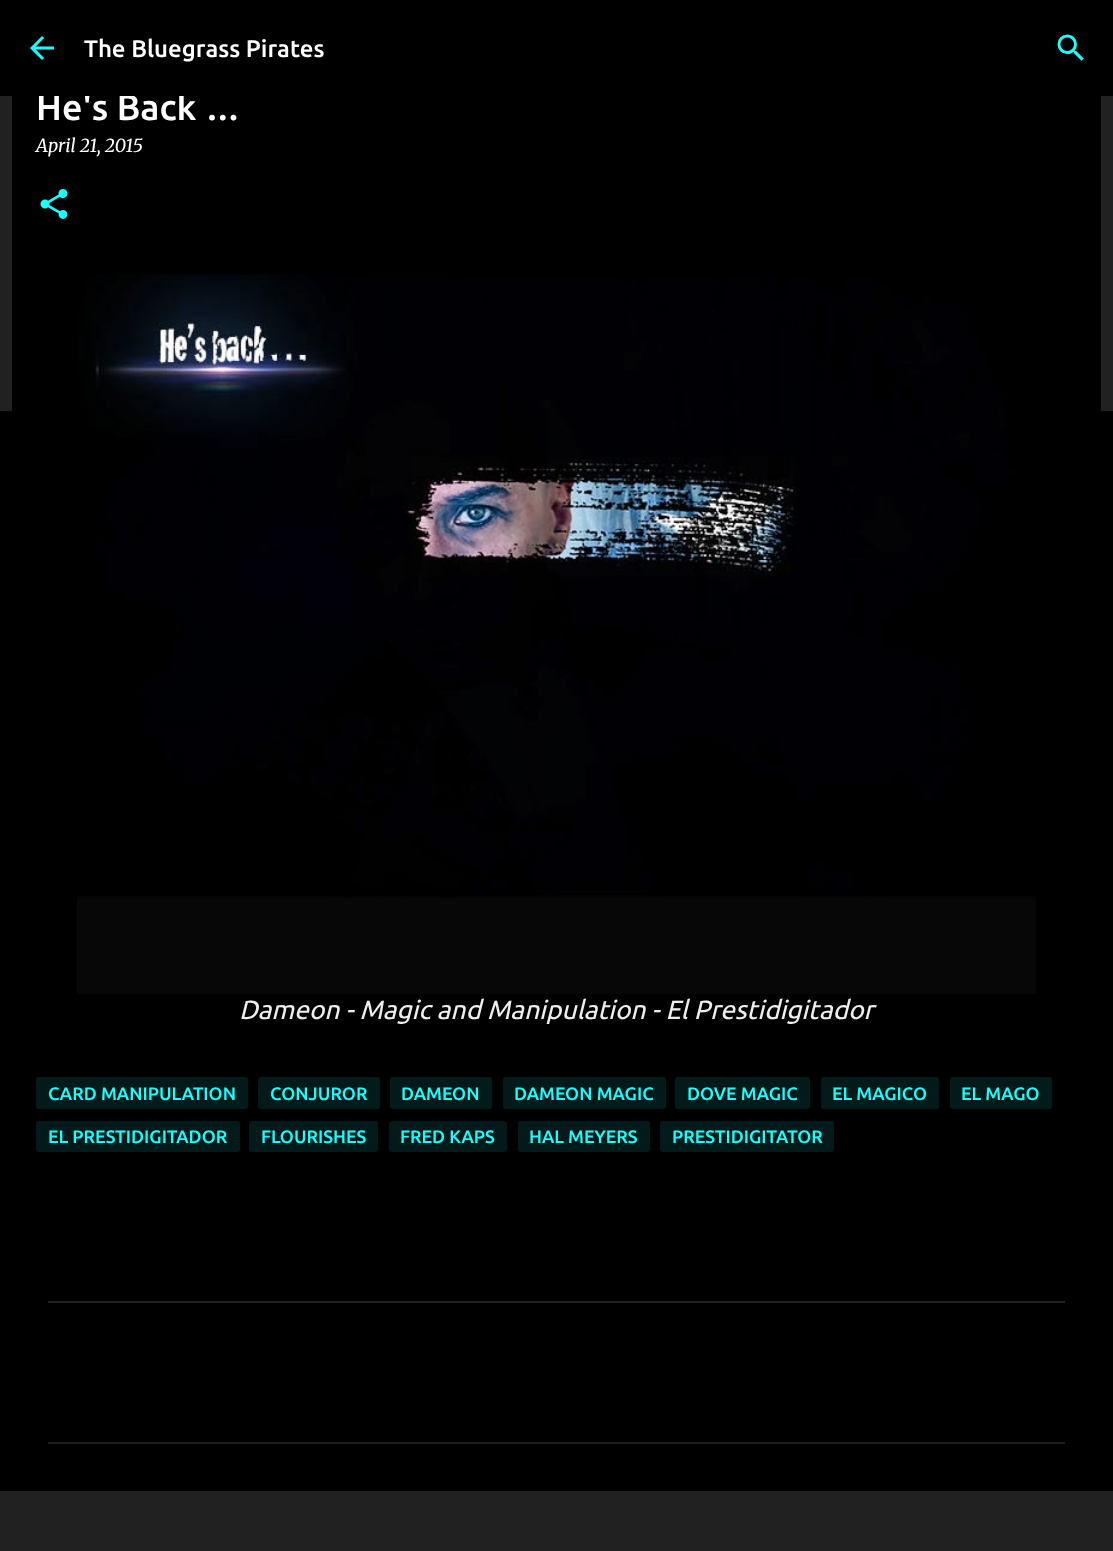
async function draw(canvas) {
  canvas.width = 1113
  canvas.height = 1551
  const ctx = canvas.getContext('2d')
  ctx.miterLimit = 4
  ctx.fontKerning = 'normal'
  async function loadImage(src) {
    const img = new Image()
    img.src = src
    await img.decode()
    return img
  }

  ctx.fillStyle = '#212121'
  ctx.fillRect(0, 0, 1113, 1551)
  ctx.fillStyle = '#000'
  ctx.fillRect(12, 96, 1089, 315)
  ctx.font = '500 36px Ubuntu'
  ctx.fillStyle = '#fff'
  ctx.fillText('He\'s Back …', 36, 120)
  ctx.fillStyle = '#000'
  ctx.fillRect(0, 0, 1113, 96)
  ctx.drawImage(await loadImage('image0.png'), 30, 36, 24, 24)
  ctx.font = '500 24px Ubuntu'
  ctx.fillStyle = '#fff'
  ctx.fillText('The Bluegrass Pirates', 84, 57)
  ctx.drawImage(await loadImage('image1.png'), 1057, 34, 27, 27)
  ctx.fillStyle = '#000'
  ctx.fillRect(0, 411, 1113, 1080)
  ctx.font = 'italic 18px Merriweather'
  ctx.fillStyle = '#fff'
  ctx.fillText('April 21, 2015', 36, 152)
  ctx.drawImage(await loadImage('image2.png'), 40, 189, 28, 30)
  ctx.drawImage(await loadImage('image3.png'), 77, 274, 959, 720)
  ctx.font = 'italic 26.4px Ubuntu'
  ctx.fillStyle = '#eee'
  ctx.fillText('Dameon - Magic and Manipulation - El Prestidigitador', 239, 1019)
  ctx.fillStyle = '#021a1a'
  ctx.beginPath()
  ctx.roundRect(36, 1077, 212, 32, 3)
  ctx.fill()
  ctx.font = '500 18px Ubuntu'
  ctx.fillStyle = '#18ffff'
  ctx.fillText('CARD MANIPULATION', 48, 1100)
  ctx.fillStyle = '#021a1a'
  ctx.beginPath()
  ctx.roundRect(258, 1077, 122, 32, 3)
  ctx.fill()
  ctx.fillStyle = '#18ffff'
  ctx.fillText('CONJUROR', 270, 1100)
  ctx.fillStyle = '#021a1a'
  ctx.beginPath()
  ctx.roundRect(390, 1077, 102, 32, 3)
  ctx.fill()
  ctx.fillStyle = '#18ffff'
  ctx.fillText('DAMEON', 401, 1100)
  ctx.fillStyle = '#021a1a'
  ctx.beginPath()
  ctx.roundRect(503, 1077, 163, 32, 3)
  ctx.fill()
  ctx.fillStyle = '#18ffff'
  ctx.fillText('DAMEON MAGIC', 514, 1100)
  ctx.fillStyle = '#021a1a'
  ctx.beginPath()
  ctx.roundRect(675, 1077, 135, 32, 3)
  ctx.fill()
  ctx.fillStyle = '#18ffff'
  ctx.fillText('DOVE MAGIC', 687, 1100)
  ctx.fillStyle = '#021a1a'
  ctx.beginPath()
  ctx.roundRect(821, 1077, 118, 32, 3)
  ctx.fill()
  ctx.fillStyle = '#18ffff'
  ctx.fillText('EL MAGICO', 832, 1100)
  ctx.fillStyle = '#021a1a'
  ctx.beginPath()
  ctx.roundRect(950, 1077, 102, 32, 3)
  ctx.fill()
  ctx.fillStyle = '#18ffff'
  ctx.fillText('EL MAGO', 961, 1100)
  ctx.fillStyle = '#021a1a'
  ctx.beginPath()
  ctx.roundRect(36, 1121, 204, 31, 3)
  ctx.fill()
  ctx.fillStyle = '#18ffff'
  ctx.fillText('EL PRESTIDIGITADOR', 48, 1143)
  ctx.fillStyle = '#021a1a'
  ctx.beginPath()
  ctx.roundRect(249, 1121, 129, 31, 3)
  ctx.fill()
  ctx.fillStyle = '#18ffff'
  ctx.fillText('FLOURISHES', 261, 1143)
  ctx.fillStyle = '#021a1a'
  ctx.beginPath()
  ctx.roundRect(389, 1121, 118, 31, 3)
  ctx.fill()
  ctx.fillStyle = '#18ffff'
  ctx.fillText('FRED KAPS', 400, 1143)
  ctx.fillStyle = '#021a1a'
  ctx.beginPath()
  ctx.roundRect(518, 1121, 132, 31, 3)
  ctx.fill()
  ctx.fillStyle = '#18ffff'
  ctx.fillText('HAL MEYERS', 529, 1143)
  ctx.fillStyle = '#021a1a'
  ctx.beginPath()
  ctx.roundRect(660, 1121, 174, 31, 3)
  ctx.fill()
  ctx.fillStyle = '#18ffff'
  ctx.fillText('PRESTIDIGITATOR', 672, 1143)
  ctx.fillStyle = '#1f1f1f'
  ctx.fillRect(48, 1301, 1017, 2)
  ctx.fillRect(48, 1442, 1017, 2)
}

draw(document.querySelector('canvas'))
